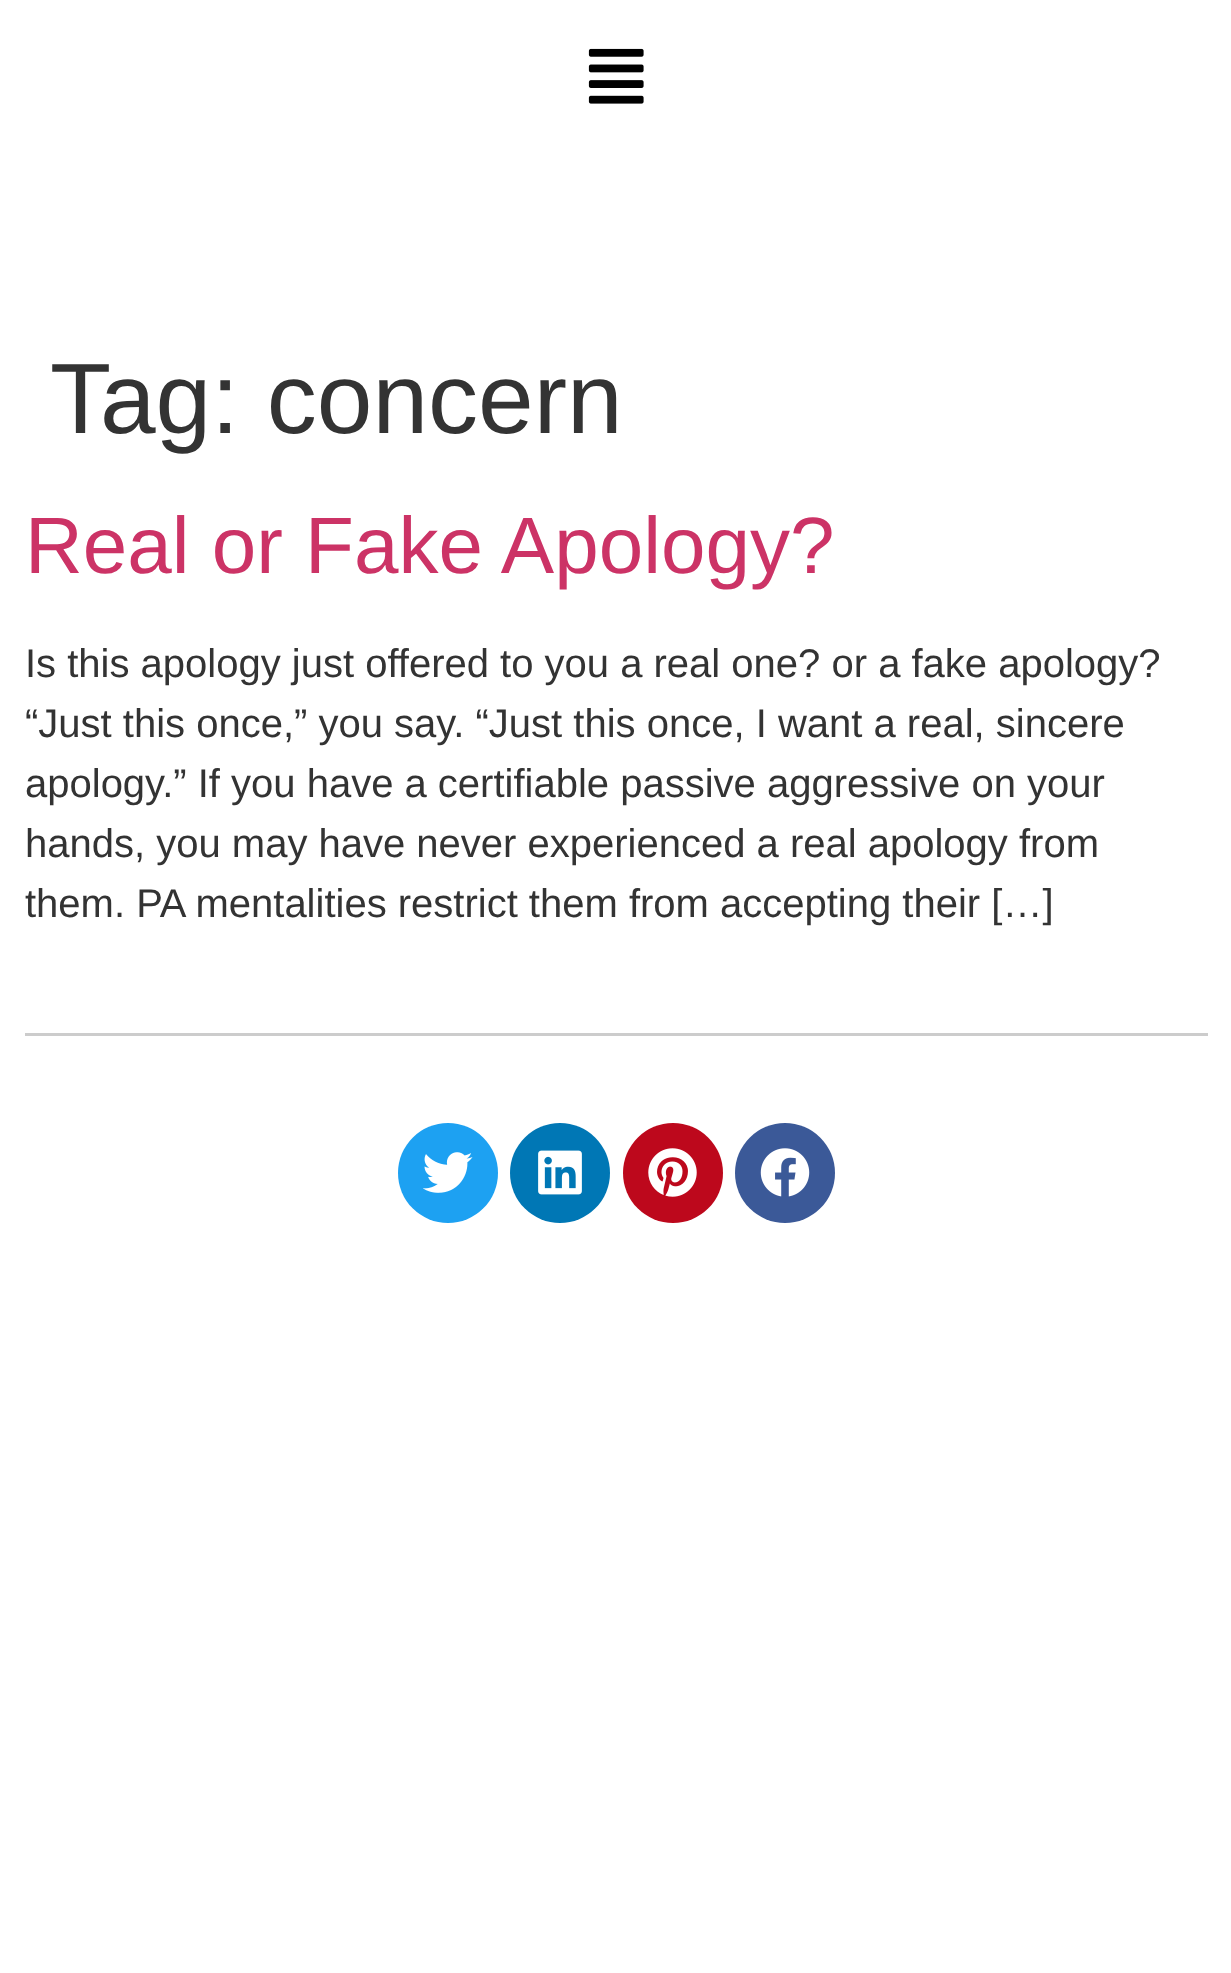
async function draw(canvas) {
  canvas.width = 1231
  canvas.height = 1973
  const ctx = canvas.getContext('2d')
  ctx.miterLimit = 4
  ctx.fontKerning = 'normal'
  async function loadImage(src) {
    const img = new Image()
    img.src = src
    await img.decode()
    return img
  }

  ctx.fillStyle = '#fff'
  ctx.fillRect(0, 0, 1231, 1973)
  ctx.drawImage(await loadImage('image0.png'), 588, 48, 56, 56)
  ctx.font = '100px Liberation Sans'
  ctx.fillStyle = '#333'
  ctx.fillText('Tag: concern', 50, 433)
  ctx.font = '80px Liberation Sans'
  ctx.fillStyle = '#c36'
  ctx.fillText('Real or Fake Apology?', 25, 573)
  ctx.font = '40px Liberation Sans'
  ctx.fillStyle = '#333'
  ctx.fillText('Is this apology just offered to you a real one? or a fake apology?', 25, 677)
  ctx.fillText('“Just this once,” you say. “Just this once, I want a real, sincere', 25, 737)
  ctx.fillText('apology.” If you have a certifiable passive aggressive on your', 25, 797)
  ctx.fillText('hands, you may have never experienced a real apology from', 25, 857)
  ctx.fillText('them. PA mentalities restrict them from accepting their […]', 25, 917)
  ctx.fillStyle = '#ccc'
  ctx.fillRect(25, 1033, 1183, 3)
  ctx.fillStyle = '#1da1f2'
  ctx.beginPath()
  ctx.arc(448, 1173, 50, 0, 2 * Math.PI)
  ctx.fill()
  ctx.drawImage(await loadImage('image1.png'), 423, 1152, 50, 41)
  ctx.fillStyle = '#0077b5'
  ctx.beginPath()
  ctx.arc(560, 1173, 50, 0, 2 * Math.PI)
  ctx.fill()
  ctx.drawImage(await loadImage('image2.png'), 538, 1150, 44, 45)
  ctx.fillStyle = '#bd081c'
  ctx.beginPath()
  ctx.arc(673, 1173, 50, 0, 2 * Math.PI)
  ctx.fill()
  ctx.drawImage(await loadImage('image3.png'), 648, 1148, 49, 49)
  ctx.fillStyle = '#3b5998'
  ctx.beginPath()
  ctx.arc(785, 1173, 50, 0, 2 * Math.PI)
  ctx.fill()
  ctx.drawImage(await loadImage('image4.png'), 760, 1148, 50, 49)
}

draw(document.querySelector('canvas'))
